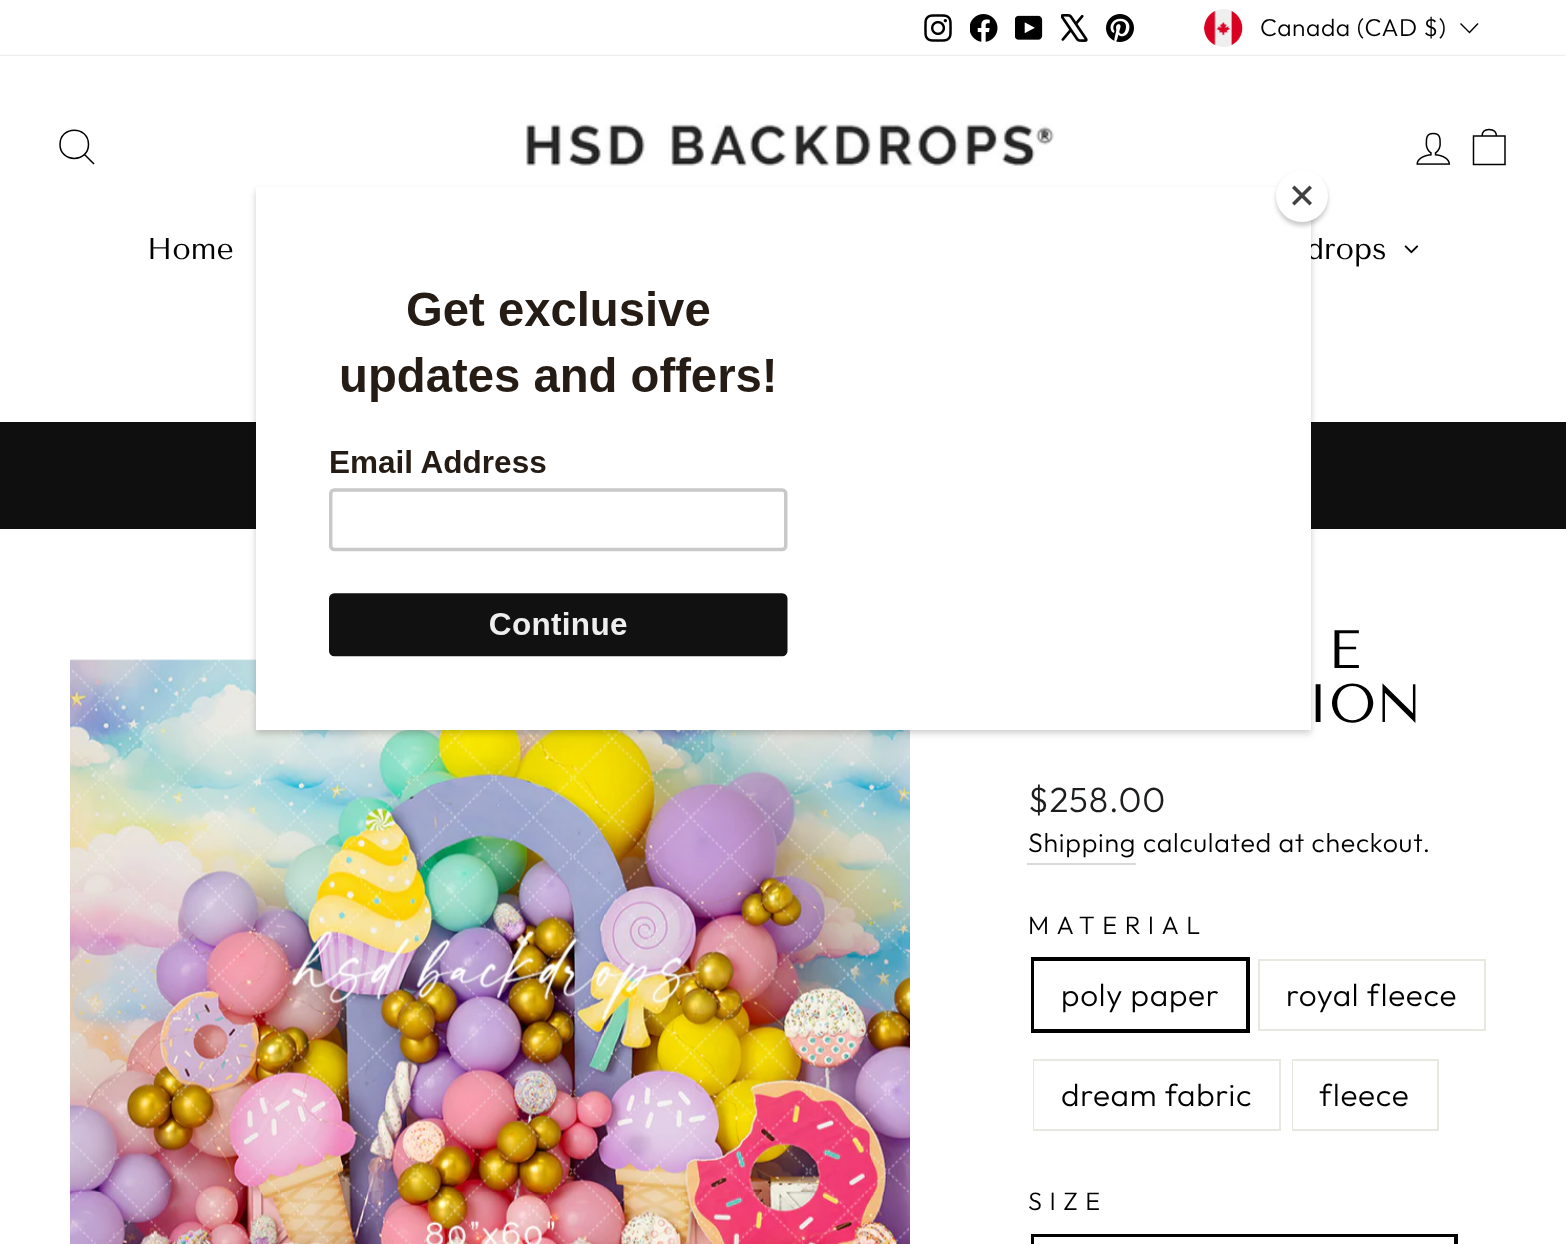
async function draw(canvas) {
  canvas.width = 1566
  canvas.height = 1244
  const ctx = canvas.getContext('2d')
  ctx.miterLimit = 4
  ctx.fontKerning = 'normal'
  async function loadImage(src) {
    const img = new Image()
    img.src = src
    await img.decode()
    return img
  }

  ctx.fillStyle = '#fff'
  ctx.fillRect(0, 0, 1566, 1244)
  ctx.drawImage(await loadImage('image0.png'), 924, 14, 28, 28)
  ctx.drawImage(await loadImage('image1.png'), 970, 14, 28, 28)
  ctx.drawImage(await loadImage('image2.png'), 1015, 15, 28, 25)
  ctx.drawImage(await loadImage('image3.png'), 1061, 14, 27, 28)
  ctx.drawImage(await loadImage('image4.png'), 1106, 14, 28, 28)
  ctx.drawImage(await loadImage('image5.png'), 1204, 9, 39, 38)
  ctx.letterSpacing = '0.6px'
  ctx.font = '300 24.5px Outfit'
  ctx.fillStyle = '#000'
  ctx.fillText('Canada (CAD $)', 1260, 36)
  ctx.beginPath()
  ctx.moveTo(1460.5, 23.5)
  ctx.lineTo(1469.5, 32.5)
  ctx.lineTo(1478, 23.5)
  ctx.strokeStyle = '#000'
  ctx.lineWidth = 1.4
  ctx.stroke()
  ctx.fillStyle = '#0f0f0f'
  ctx.fillRect(0, 422, 1566, 107)
  ctx.fillStyle = '#00000033'
  ctx.filter = 'blur(1px)'
  ctx.beginPath()
  ctx.rect(0, 56, 1566, 366)
  ctx.fill()
  ctx.filter = 'none'
  ctx.fillStyle = '#fff'
  ctx.fillRect(0, 56, 1566, 366)
  ctx.beginPath()
  ctx.moveTo(88.5, 144.5)
  ctx.bezierCurveTo(88.5, 163, 60, 163, 60, 144.5)
  ctx.bezierCurveTo(60, 125.5, 88.5, 125.5, 88.5, 144.5)
  ctx.closePath()
  ctx.moveTo(94, 164)
  ctx.lineTo(84.5, 154.5)
  ctx.lineWidth = 1.5
  ctx.stroke()
  ctx.drawImage(await loadImage('image6.png'), 526, 124, 528, 42)
  ctx.drawImage(await loadImage('image7.png'), 1416, 132, 35, 33)
  ctx.beginPath()
  ctx.moveTo(1473.5, 136)
  ctx.lineTo(1505, 136)
  ctx.lineTo(1505, 164.5)
  ctx.lineTo(1473.5, 164.5)
  ctx.closePath()
  ctx.moveTo(1482, 136.5)
  ctx.bezierCurveTo(1482, 131, 1485, 129.5, 1489, 129.5)
  ctx.bezierCurveTo(1493.5, 129.5, 1496.5, 131, 1496.5, 136.5)
  ctx.stroke()
  ctx.letterSpacing = '0px'
  ctx.font = '30px Tenor Sans'
  ctx.fillStyle = '#000'
  ctx.fillText('Home', 147, 259)
  ctx.fillText('drops', 1306, 259)
  ctx.drawImage(await loadImage('image8.png'), 1404, 245, 15, 9)
  ctx.drawImage(await loadImage('image9.png'), 70, 659, 840, 585)
  ctx.font = '54px Tenor Sans'
  ctx.fillText('E', 1328, 668)
  ctx.fillText('ION', 1307, 722)
  ctx.letterSpacing = '0.75px'
  ctx.font = '300 35px Outfit'
  ctx.fillStyle = '#1c1d1d'
  ctx.fillText('$258.00', 1028, 812)
  ctx.fillStyle = '#d9d9d9'
  ctx.fillRect(1027, 863, 109, 2)
  ctx.font = '300 26.75px Outfit'
  ctx.fillStyle = '#000'
  ctx.fillText('Shipping', 1028, 852)
  ctx.fillText('calculated at checkout.', 1143, 852)
  ctx.letterSpacing = '7.5px'
  ctx.font = '300 25.25px Outfit'
  ctx.fillText('MATERIAL', 1028, 934)
  ctx.lineWidth = 4
  ctx.strokeRect(1033, 959, 215, 72)
  ctx.fillStyle = '#fff'
  ctx.fillRect(1034, 961, 1, 68)
  ctx.letterSpacing = '0.75px'
  ctx.font = '300 31.5px Outfit'
  ctx.fillStyle = '#000'
  ctx.fillText('poly paper', 1061, 1006)
  ctx.strokeStyle = '#e8e8e1'
  ctx.lineWidth = 2
  ctx.strokeRect(1259, 960, 226, 70)
  ctx.fillText('royal fleece', 1286, 1006)
  ctx.strokeRect(1034, 1060, 246, 70)
  ctx.fillStyle = '#fff'
  ctx.fillRect(1034, 1061, 1, 68)
  ctx.fillStyle = '#000'
  ctx.fillText('dream fabric', 1061, 1106)
  ctx.strokeRect(1293, 1060, 145, 70)
  ctx.fillStyle = '#fff'
  ctx.fillRect(1293, 1061, 1, 68)
  ctx.fillStyle = '#000'
  ctx.fillText('fleece', 1319, 1106)
  ctx.letterSpacing = '7.5px'
  ctx.font = '300 25.25px Outfit'
  ctx.fillText('SIZE', 1028, 1210)
  ctx.strokeStyle = '#000'
  ctx.lineWidth = 4
  ctx.strokeRect(1033, 1236, 423, 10)
  ctx.fillStyle = '#fff'
  ctx.fillRect(1034, 1237, 420, 7)
  ctx.save()
  ctx.beginPath()
  ctx.moveTo(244, 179)
  ctx.lineTo(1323, 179)
  ctx.lineTo(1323, 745)
  ctx.lineTo(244, 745)
  ctx.closePath()
  ctx.moveTo(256, 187)
  ctx.lineTo(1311, 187)
  ctx.lineTo(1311, 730)
  ctx.lineTo(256, 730)
  ctx.closePath()
  ctx.clip('evenodd')
  ctx.fillStyle = '#00000033'
  ctx.filter = 'blur(3.5px)'
  ctx.beginPath()
  ctx.rect(256, 191, 1055, 542)
  ctx.fill()
  ctx.filter = 'none'
  ctx.restore()
  ctx.drawImage(await loadImage('image10.png'), 256, 192, 1055, 538)
  ctx.fillStyle = '#00000033'
  ctx.filter = 'blur(2px)'
  ctx.beginPath()
  ctx.roundRect(1276, 173, 52, 53, 26)
  ctx.fill()
  ctx.filter = 'none'
  ctx.fillStyle = '#fff'
  ctx.beginPath()
  ctx.arc(1302, 196, 26, 0, 2 * Math.PI)
  ctx.fill()
  ctx.fillStyle = '#414141'
  ctx.beginPath()
  ctx.moveTo(1309.5, 185.5)
  ctx.lineTo(1312, 188)
  ctx.lineTo(1294.5, 205.5)
  ctx.lineTo(1292, 203)
  ctx.closePath()
  ctx.fill()
  ctx.beginPath()
  ctx.moveTo(1292, 188)
  ctx.lineTo(1294.5, 185.5)
  ctx.lineTo(1312, 203)
  ctx.lineTo(1309.5, 205.5)
  ctx.closePath()
  ctx.fill()
}

draw(document.querySelector('canvas'))
